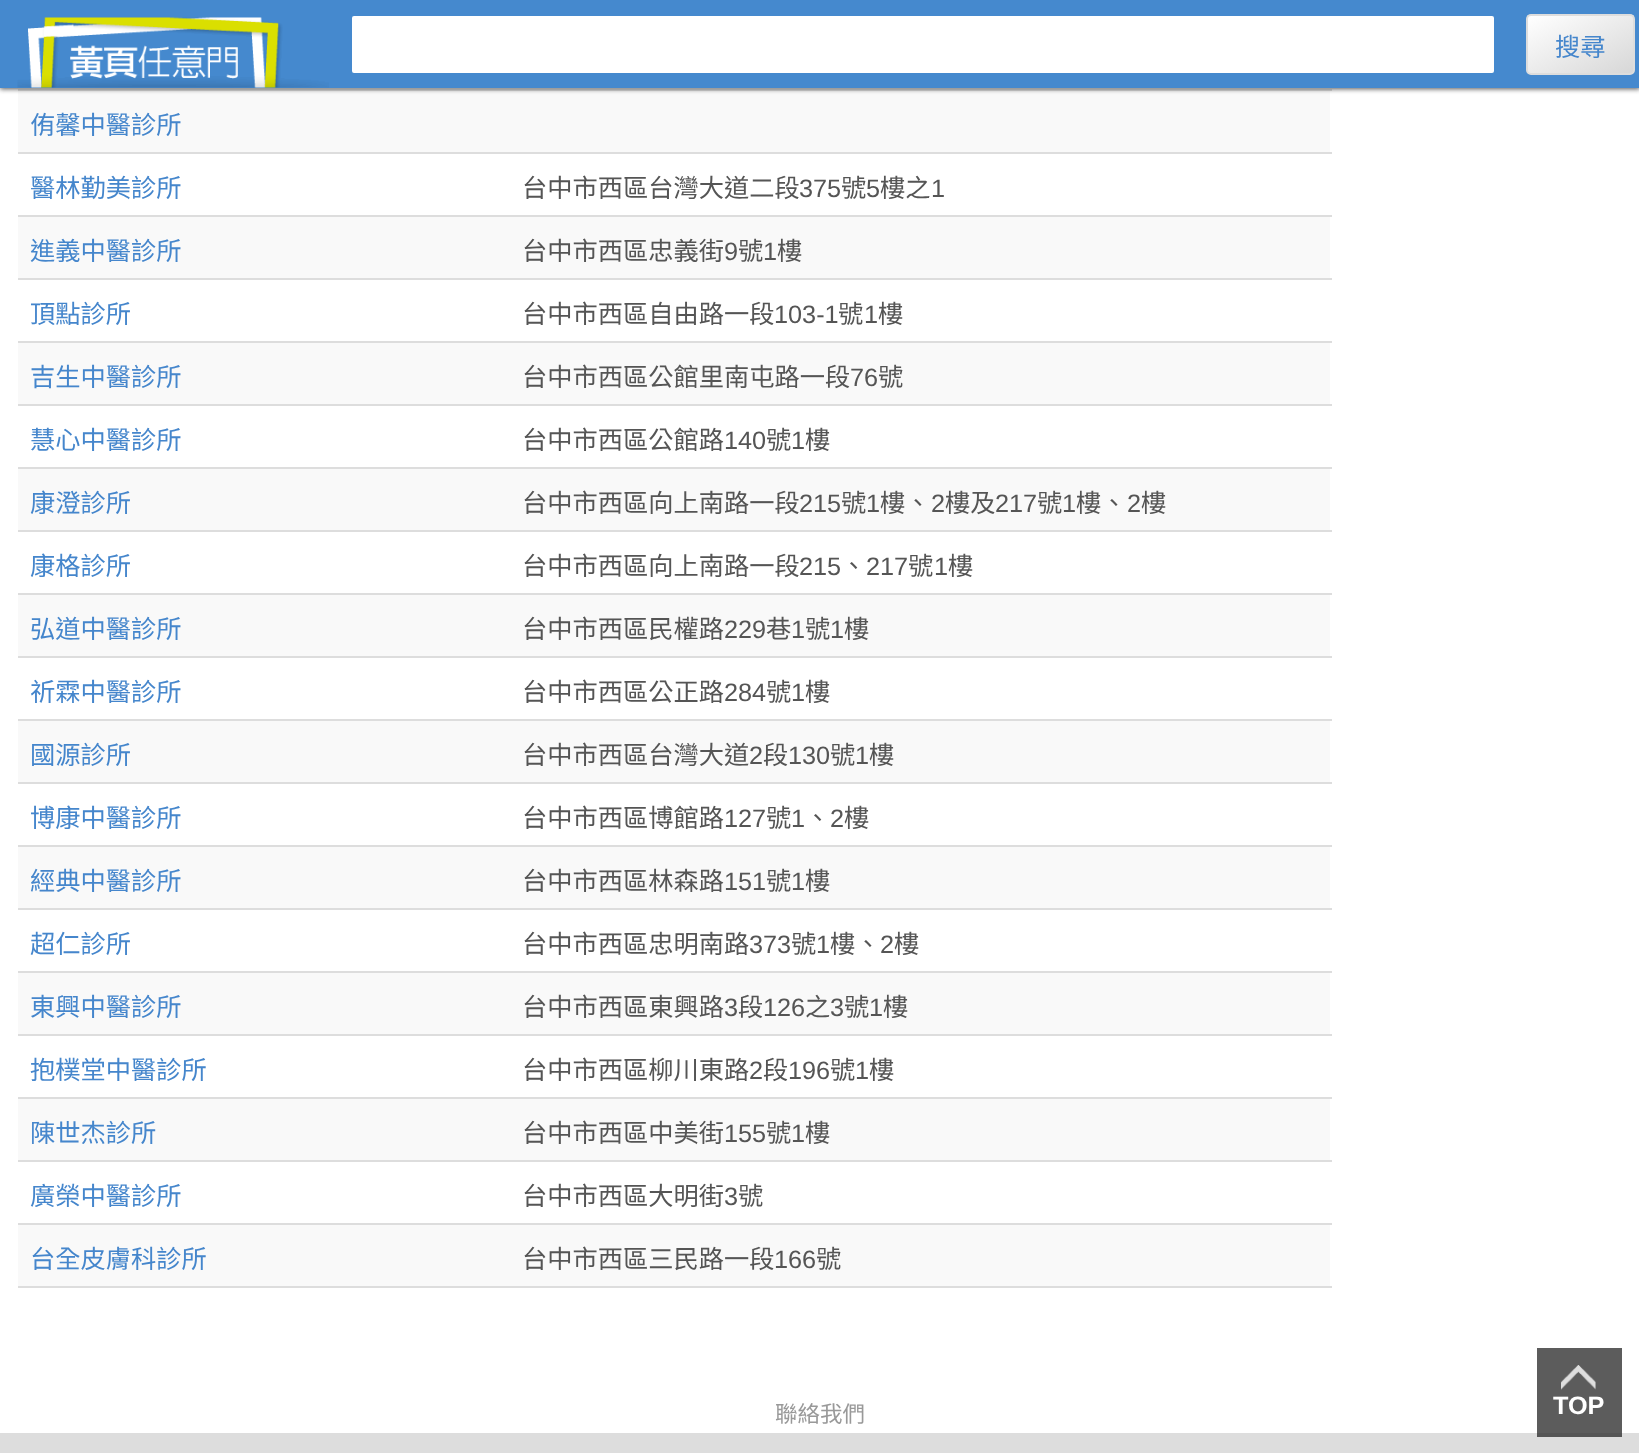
async function draw(canvas) {
  canvas.width = 1639
  canvas.height = 1453
  const ctx = canvas.getContext('2d')
  ctx.miterLimit = 4
  ctx.fontKerning = 'normal'
  async function loadImage(src) {
    const img = new Image()
    img.src = src
    await img.decode()
    return img
  }
  let gradient

  ctx.fillStyle = '#fff'
  ctx.fillRect(0, 0, 1639, 1453)
  ctx.fillStyle = '#5c5c5c'
  ctx.fillRect(1537, 1348, 85, 85)
  ctx.fillStyle = '#ddd'
  ctx.fillRect(18, 89, 1314, 2)
  ctx.fillStyle = '#f9f9f9'
  ctx.fillRect(18, 91, 1312, 61)
  ctx.fillStyle = '#555'
  ctx.filter = 'blur(2.5px)'
  ctx.beginPath()
  ctx.rect(0, 2, 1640, 87)
  ctx.fill()
  ctx.filter = 'none'
  ctx.fillStyle = '#4589ce'
  ctx.fillRect(0, 0, 1639, 88)
  ctx.drawImage(await loadImage('image0.png'), 17, 17, 312, 71)
  ctx.fillStyle = '#fff'
  ctx.beginPath()
  ctx.roundRect(351, 15, 1144, 59, 3)
  ctx.fill()
  ctx.strokeStyle = '#4589ce'
  ctx.lineWidth = 2
  ctx.stroke()
  ctx.save()
  ctx.beginPath()
  ctx.roundRect(1526, 14, 109, 61, 5)
  ctx.clip()
  gradient = ctx.createLinearGradient(1451, -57, 1500, 31)
  gradient.addColorStop(0, '#fff')
  gradient.addColorStop(1, '#d7d7d7')
  ctx.fillStyle = gradient
  ctx.fillRect(1526, 15, 2, 1)
  gradient = ctx.createLinearGradient(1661, -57, 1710, 31)
  gradient.addColorStop(0, '#fff')
  gradient.addColorStop(1, '#d7d7d7')
  ctx.fillStyle = gradient
  ctx.fillRect(1633, 15, 2, 1)
  ctx.restore()
  gradient = ctx.createLinearGradient(1556, 0.3, 1605, 89)
  gradient.addColorStop(0, '#fff')
  gradient.addColorStop(1, '#d7d7d7')
  ctx.fillStyle = gradient
  ctx.fillRect(1528, 16, 105, 57)
  ctx.beginPath()
  ctx.roundRect(1527, 15, 107, 59, 4)
  ctx.strokeStyle = '#ddd'
  ctx.stroke()
  ctx.font = '25.25px Noto Sans CJK TC'
  ctx.fillStyle = '#4586cc'
  ctx.fillText('搜尋', 1555, 56)
  ctx.fillStyle = '#ddd'
  ctx.fillRect(18, 152, 1314, 2)
  ctx.fillStyle = '#4586cc'
  ctx.fillText('侑馨中醫診所', 30, 134)
  ctx.fillStyle = '#ddd'
  ctx.fillRect(18, 215, 1314, 2)
  ctx.fillStyle = '#4586cc'
  ctx.fillText('醫林勤美診所', 30, 197)
  ctx.fillStyle = '#555'
  ctx.fillText('台中市西區台灣大道二段', 522, 197)
  ctx.font = '25.25px Liberation Sans'
  ctx.fillText('375', 799, 197)
  ctx.font = '25.25px Noto Sans CJK TC'
  ctx.fillText('號', 841, 197)
  ctx.font = '25.25px Liberation Sans'
  ctx.fillText('5', 866, 197)
  ctx.font = '25.25px Noto Sans CJK TC'
  ctx.fillText('樓之', 880, 197)
  ctx.font = '25.25px Liberation Sans'
  ctx.fillText('1', 931, 197)
  ctx.fillStyle = '#f9f9f9'
  ctx.fillRect(18, 217, 1312, 61)
  ctx.fillStyle = '#ddd'
  ctx.fillRect(18, 278, 1314, 2)
  ctx.font = '25.25px Noto Sans CJK TC'
  ctx.fillStyle = '#4586cc'
  ctx.fillText('進義中醫診所', 30, 260)
  ctx.fillStyle = '#555'
  ctx.fillText('台中市西區忠義街', 522, 260)
  ctx.font = '25.25px Liberation Sans'
  ctx.fillText('9', 724, 260)
  ctx.font = '25.25px Noto Sans CJK TC'
  ctx.fillText('號', 738, 260)
  ctx.font = '25.25px Liberation Sans'
  ctx.fillText('1', 763, 260)
  ctx.font = '25.25px Noto Sans CJK TC'
  ctx.fillText('樓', 777, 260)
  ctx.fillStyle = '#ddd'
  ctx.fillRect(18, 341, 1314, 2)
  ctx.fillStyle = '#4586cc'
  ctx.fillText('頂點診所', 30, 323)
  ctx.fillStyle = '#555'
  ctx.fillText('台中市西區自由路一段', 522, 323)
  ctx.font = '25.25px Liberation Sans'
  ctx.fillText('103-1', 774, 323)
  ctx.font = '25.25px Noto Sans CJK TC'
  ctx.fillText('號', 838, 323)
  ctx.font = '25.25px Liberation Sans'
  ctx.fillText('1', 864, 323)
  ctx.font = '25.25px Noto Sans CJK TC'
  ctx.fillText('樓', 878, 323)
  ctx.fillStyle = '#f9f9f9'
  ctx.fillRect(18, 343, 1312, 61)
  ctx.fillStyle = '#ddd'
  ctx.fillRect(18, 404, 1314, 2)
  ctx.fillStyle = '#4586cc'
  ctx.fillText('吉生中醫診所', 30, 386)
  ctx.fillStyle = '#555'
  ctx.fillText('台中市西區公館里南屯路一段', 522, 386)
  ctx.font = '25.25px Liberation Sans'
  ctx.fillText('76', 850, 386)
  ctx.font = '25.25px Noto Sans CJK TC'
  ctx.fillText('號', 878, 386)
  ctx.fillStyle = '#ddd'
  ctx.fillRect(18, 467, 1314, 2)
  ctx.fillStyle = '#4586cc'
  ctx.fillText('慧心中醫診所', 30, 449)
  ctx.fillStyle = '#555'
  ctx.fillText('台中市西區公館路', 522, 449)
  ctx.font = '25.25px Liberation Sans'
  ctx.fillText('140', 724, 449)
  ctx.font = '25.25px Noto Sans CJK TC'
  ctx.fillText('號', 766, 449)
  ctx.font = '25.25px Liberation Sans'
  ctx.fillText('1', 791, 449)
  ctx.font = '25.25px Noto Sans CJK TC'
  ctx.fillText('樓', 805, 449)
  ctx.fillStyle = '#f9f9f9'
  ctx.fillRect(18, 469, 1312, 61)
  ctx.fillStyle = '#ddd'
  ctx.fillRect(18, 530, 1314, 2)
  ctx.fillStyle = '#4586cc'
  ctx.fillText('康澄診所', 30, 512)
  ctx.fillStyle = '#555'
  ctx.fillText('台中市西區向上南路一段', 522, 512)
  ctx.font = '25.25px Liberation Sans'
  ctx.fillText('215', 799, 512)
  ctx.font = '25.25px Noto Sans CJK TC'
  ctx.fillText('號', 841, 512)
  ctx.font = '25.25px Liberation Sans'
  ctx.fillText('1', 866, 512)
  ctx.font = '25.25px Noto Sans CJK TC'
  ctx.fillText('樓、', 880, 512)
  ctx.font = '25.25px Liberation Sans'
  ctx.fillText('2', 931, 512)
  ctx.font = '25.25px Noto Sans CJK TC'
  ctx.fillText('樓及', 945, 512)
  ctx.font = '25.25px Liberation Sans'
  ctx.fillText('217', 995, 512)
  ctx.font = '25.25px Noto Sans CJK TC'
  ctx.fillText('號', 1037, 512)
  ctx.font = '25.25px Liberation Sans'
  ctx.fillText('1', 1062, 512)
  ctx.font = '25.25px Noto Sans CJK TC'
  ctx.fillText('樓、', 1076, 512)
  ctx.font = '25.25px Liberation Sans'
  ctx.fillText('2', 1127, 512)
  ctx.font = '25.25px Noto Sans CJK TC'
  ctx.fillText('樓', 1141, 512)
  ctx.fillStyle = '#ddd'
  ctx.fillRect(18, 593, 1314, 2)
  ctx.fillStyle = '#4586cc'
  ctx.fillText('康格診所', 30, 575)
  ctx.fillStyle = '#555'
  ctx.fillText('台中市西區向上南路一段', 522, 575)
  ctx.font = '25.25px Liberation Sans'
  ctx.fillText('215', 799, 575)
  ctx.font = '25.25px Noto Sans CJK TC'
  ctx.fillText('、', 841, 575)
  ctx.font = '25.25px Liberation Sans'
  ctx.fillText('217', 866, 575)
  ctx.font = '25.25px Noto Sans CJK TC'
  ctx.fillText('號', 908, 575)
  ctx.font = '25.25px Liberation Sans'
  ctx.fillText('1', 934, 575)
  ctx.font = '25.25px Noto Sans CJK TC'
  ctx.fillText('樓', 948, 575)
  ctx.fillStyle = '#f9f9f9'
  ctx.fillRect(18, 595, 1312, 61)
  ctx.fillStyle = '#ddd'
  ctx.fillRect(18, 656, 1314, 2)
  ctx.fillStyle = '#4586cc'
  ctx.fillText('弘道中醫診所', 30, 638)
  ctx.fillStyle = '#555'
  ctx.fillText('台中市西區民權路', 522, 638)
  ctx.font = '25.25px Liberation Sans'
  ctx.fillText('229', 724, 638)
  ctx.font = '25.25px Noto Sans CJK TC'
  ctx.fillText('巷', 766, 638)
  ctx.font = '25.25px Liberation Sans'
  ctx.fillText('1', 791, 638)
  ctx.font = '25.25px Noto Sans CJK TC'
  ctx.fillText('號', 805, 638)
  ctx.font = '25.25px Liberation Sans'
  ctx.fillText('1', 830, 638)
  ctx.font = '25.25px Noto Sans CJK TC'
  ctx.fillText('樓', 844, 638)
  ctx.fillStyle = '#ddd'
  ctx.fillRect(18, 719, 1314, 2)
  ctx.fillStyle = '#4586cc'
  ctx.fillText('祈霖中醫診所', 30, 701)
  ctx.fillStyle = '#555'
  ctx.fillText('台中市西區公正路', 522, 701)
  ctx.font = '25.25px Liberation Sans'
  ctx.fillText('284', 724, 701)
  ctx.font = '25.25px Noto Sans CJK TC'
  ctx.fillText('號', 766, 701)
  ctx.font = '25.25px Liberation Sans'
  ctx.fillText('1', 791, 701)
  ctx.font = '25.25px Noto Sans CJK TC'
  ctx.fillText('樓', 805, 701)
  ctx.fillStyle = '#f9f9f9'
  ctx.fillRect(18, 721, 1312, 61)
  ctx.fillStyle = '#ddd'
  ctx.fillRect(18, 782, 1314, 2)
  ctx.fillStyle = '#4586cc'
  ctx.fillText('國源診所', 30, 764)
  ctx.fillStyle = '#555'
  ctx.fillText('台中市西區台灣大道', 522, 764)
  ctx.font = '25.25px Liberation Sans'
  ctx.fillText('2', 749, 764)
  ctx.font = '25.25px Noto Sans CJK TC'
  ctx.fillText('段', 763, 764)
  ctx.font = '25.25px Liberation Sans'
  ctx.fillText('130', 788, 764)
  ctx.font = '25.25px Noto Sans CJK TC'
  ctx.fillText('號', 830, 764)
  ctx.font = '25.25px Liberation Sans'
  ctx.fillText('1', 855, 764)
  ctx.font = '25.25px Noto Sans CJK TC'
  ctx.fillText('樓', 869, 764)
  ctx.fillStyle = '#ddd'
  ctx.fillRect(18, 845, 1314, 2)
  ctx.fillStyle = '#4586cc'
  ctx.fillText('博康中醫診所', 30, 827)
  ctx.fillStyle = '#555'
  ctx.fillText('台中市西區博館路', 522, 827)
  ctx.font = '25.25px Liberation Sans'
  ctx.fillText('127', 724, 827)
  ctx.font = '25.25px Noto Sans CJK TC'
  ctx.fillText('號', 766, 827)
  ctx.font = '25.25px Liberation Sans'
  ctx.fillText('1', 791, 827)
  ctx.font = '25.25px Noto Sans CJK TC'
  ctx.fillText('、', 805, 827)
  ctx.font = '25.25px Liberation Sans'
  ctx.fillText('2', 830, 827)
  ctx.font = '25.25px Noto Sans CJK TC'
  ctx.fillText('樓', 844, 827)
  ctx.fillStyle = '#f9f9f9'
  ctx.fillRect(18, 847, 1312, 61)
  ctx.fillStyle = '#ddd'
  ctx.fillRect(18, 908, 1314, 2)
  ctx.fillStyle = '#4586cc'
  ctx.fillText('經典中醫診所', 30, 890)
  ctx.fillStyle = '#555'
  ctx.fillText('台中市西區林森路', 522, 890)
  ctx.font = '25.25px Liberation Sans'
  ctx.fillText('151', 724, 890)
  ctx.font = '25.25px Noto Sans CJK TC'
  ctx.fillText('號', 766, 890)
  ctx.font = '25.25px Liberation Sans'
  ctx.fillText('1', 791, 890)
  ctx.font = '25.25px Noto Sans CJK TC'
  ctx.fillText('樓', 805, 890)
  ctx.fillStyle = '#ddd'
  ctx.fillRect(18, 971, 1314, 2)
  ctx.fillStyle = '#4586cc'
  ctx.fillText('超仁診所', 30, 953)
  ctx.fillStyle = '#555'
  ctx.fillText('台中市西區忠明南路', 522, 953)
  ctx.font = '25.25px Liberation Sans'
  ctx.fillText('373', 749, 953)
  ctx.font = '25.25px Noto Sans CJK TC'
  ctx.fillText('號', 791, 953)
  ctx.font = '25.25px Liberation Sans'
  ctx.fillText('1', 816, 953)
  ctx.font = '25.25px Noto Sans CJK TC'
  ctx.fillText('樓、', 830, 953)
  ctx.font = '25.25px Liberation Sans'
  ctx.fillText('2', 880, 953)
  ctx.font = '25.25px Noto Sans CJK TC'
  ctx.fillText('樓', 894, 953)
  ctx.fillStyle = '#f9f9f9'
  ctx.fillRect(18, 973, 1312, 61)
  ctx.fillStyle = '#ddd'
  ctx.fillRect(18, 1034, 1314, 2)
  ctx.fillStyle = '#4586cc'
  ctx.fillText('東興中醫診所', 30, 1016)
  ctx.fillStyle = '#555'
  ctx.fillText('台中市西區東興路', 522, 1016)
  ctx.font = '25.25px Liberation Sans'
  ctx.fillText('3', 724, 1016)
  ctx.font = '25.25px Noto Sans CJK TC'
  ctx.fillText('段', 738, 1016)
  ctx.font = '25.25px Liberation Sans'
  ctx.fillText('126', 763, 1016)
  ctx.font = '25.25px Noto Sans CJK TC'
  ctx.fillText('之', 805, 1016)
  ctx.font = '25.25px Liberation Sans'
  ctx.fillText('3', 830, 1016)
  ctx.font = '25.25px Noto Sans CJK TC'
  ctx.fillText('號', 844, 1016)
  ctx.font = '25.25px Liberation Sans'
  ctx.fillText('1', 869, 1016)
  ctx.font = '25.25px Noto Sans CJK TC'
  ctx.fillText('樓', 883, 1016)
  ctx.fillStyle = '#ddd'
  ctx.fillRect(18, 1097, 1314, 2)
  ctx.fillStyle = '#4586cc'
  ctx.fillText('抱樸堂中醫診所', 30, 1079)
  ctx.fillStyle = '#555'
  ctx.fillText('台中市西區柳川東路', 522, 1079)
  ctx.font = '25.25px Liberation Sans'
  ctx.fillText('2', 749, 1079)
  ctx.font = '25.25px Noto Sans CJK TC'
  ctx.fillText('段', 763, 1079)
  ctx.font = '25.25px Liberation Sans'
  ctx.fillText('196', 788, 1079)
  ctx.font = '25.25px Noto Sans CJK TC'
  ctx.fillText('號', 830, 1079)
  ctx.font = '25.25px Liberation Sans'
  ctx.fillText('1', 855, 1079)
  ctx.font = '25.25px Noto Sans CJK TC'
  ctx.fillText('樓', 869, 1079)
  ctx.fillStyle = '#f9f9f9'
  ctx.fillRect(18, 1099, 1312, 61)
  ctx.fillStyle = '#ddd'
  ctx.fillRect(18, 1160, 1314, 2)
  ctx.fillStyle = '#4586cc'
  ctx.fillText('陳世杰診所', 30, 1142)
  ctx.fillStyle = '#555'
  ctx.fillText('台中市西區中美街', 522, 1142)
  ctx.font = '25.25px Liberation Sans'
  ctx.fillText('155', 724, 1142)
  ctx.font = '25.25px Noto Sans CJK TC'
  ctx.fillText('號', 766, 1142)
  ctx.font = '25.25px Liberation Sans'
  ctx.fillText('1', 791, 1142)
  ctx.font = '25.25px Noto Sans CJK TC'
  ctx.fillText('樓', 805, 1142)
  ctx.fillStyle = '#ddd'
  ctx.fillRect(18, 1223, 1314, 2)
  ctx.fillStyle = '#4586cc'
  ctx.fillText('廣榮中醫診所', 30, 1205)
  ctx.fillStyle = '#555'
  ctx.fillText('台中市西區大明街', 522, 1205)
  ctx.font = '25.25px Liberation Sans'
  ctx.fillText('3', 724, 1205)
  ctx.font = '25.25px Noto Sans CJK TC'
  ctx.fillText('號', 738, 1205)
  ctx.fillStyle = '#f9f9f9'
  ctx.fillRect(18, 1225, 1312, 61)
  ctx.fillStyle = '#ddd'
  ctx.fillRect(18, 1286, 1314, 2)
  ctx.fillStyle = '#4586cc'
  ctx.fillText('台全皮膚科診所', 30, 1268)
  ctx.fillStyle = '#555'
  ctx.fillText('台中市西區三民路一段', 522, 1268)
  ctx.font = '25.25px Liberation Sans'
  ctx.fillText('166', 774, 1268)
  ctx.font = '25.25px Noto Sans CJK TC'
  ctx.fillText('號', 816, 1268)
  ctx.font = '22.5px Noto Sans CJK TC'
  ctx.fillStyle = '#999'
  ctx.fillText('聯絡我們', 775, 1422)
  ctx.fillStyle = '#ddd'
  ctx.fillRect(0, 1433, 1639, 20)
  ctx.fillStyle = '#555'
  ctx.fillRect(1537, 1433, 85, 4)
  ctx.drawImage(await loadImage('image1.png'), 1561, 1365, 35, 25)
  ctx.font = 'bold 25.25px Liberation Sans'
  ctx.fillStyle = '#fff'
  ctx.fillText('TOP', 1553, 1414)
}

draw(document.querySelector('canvas'))
